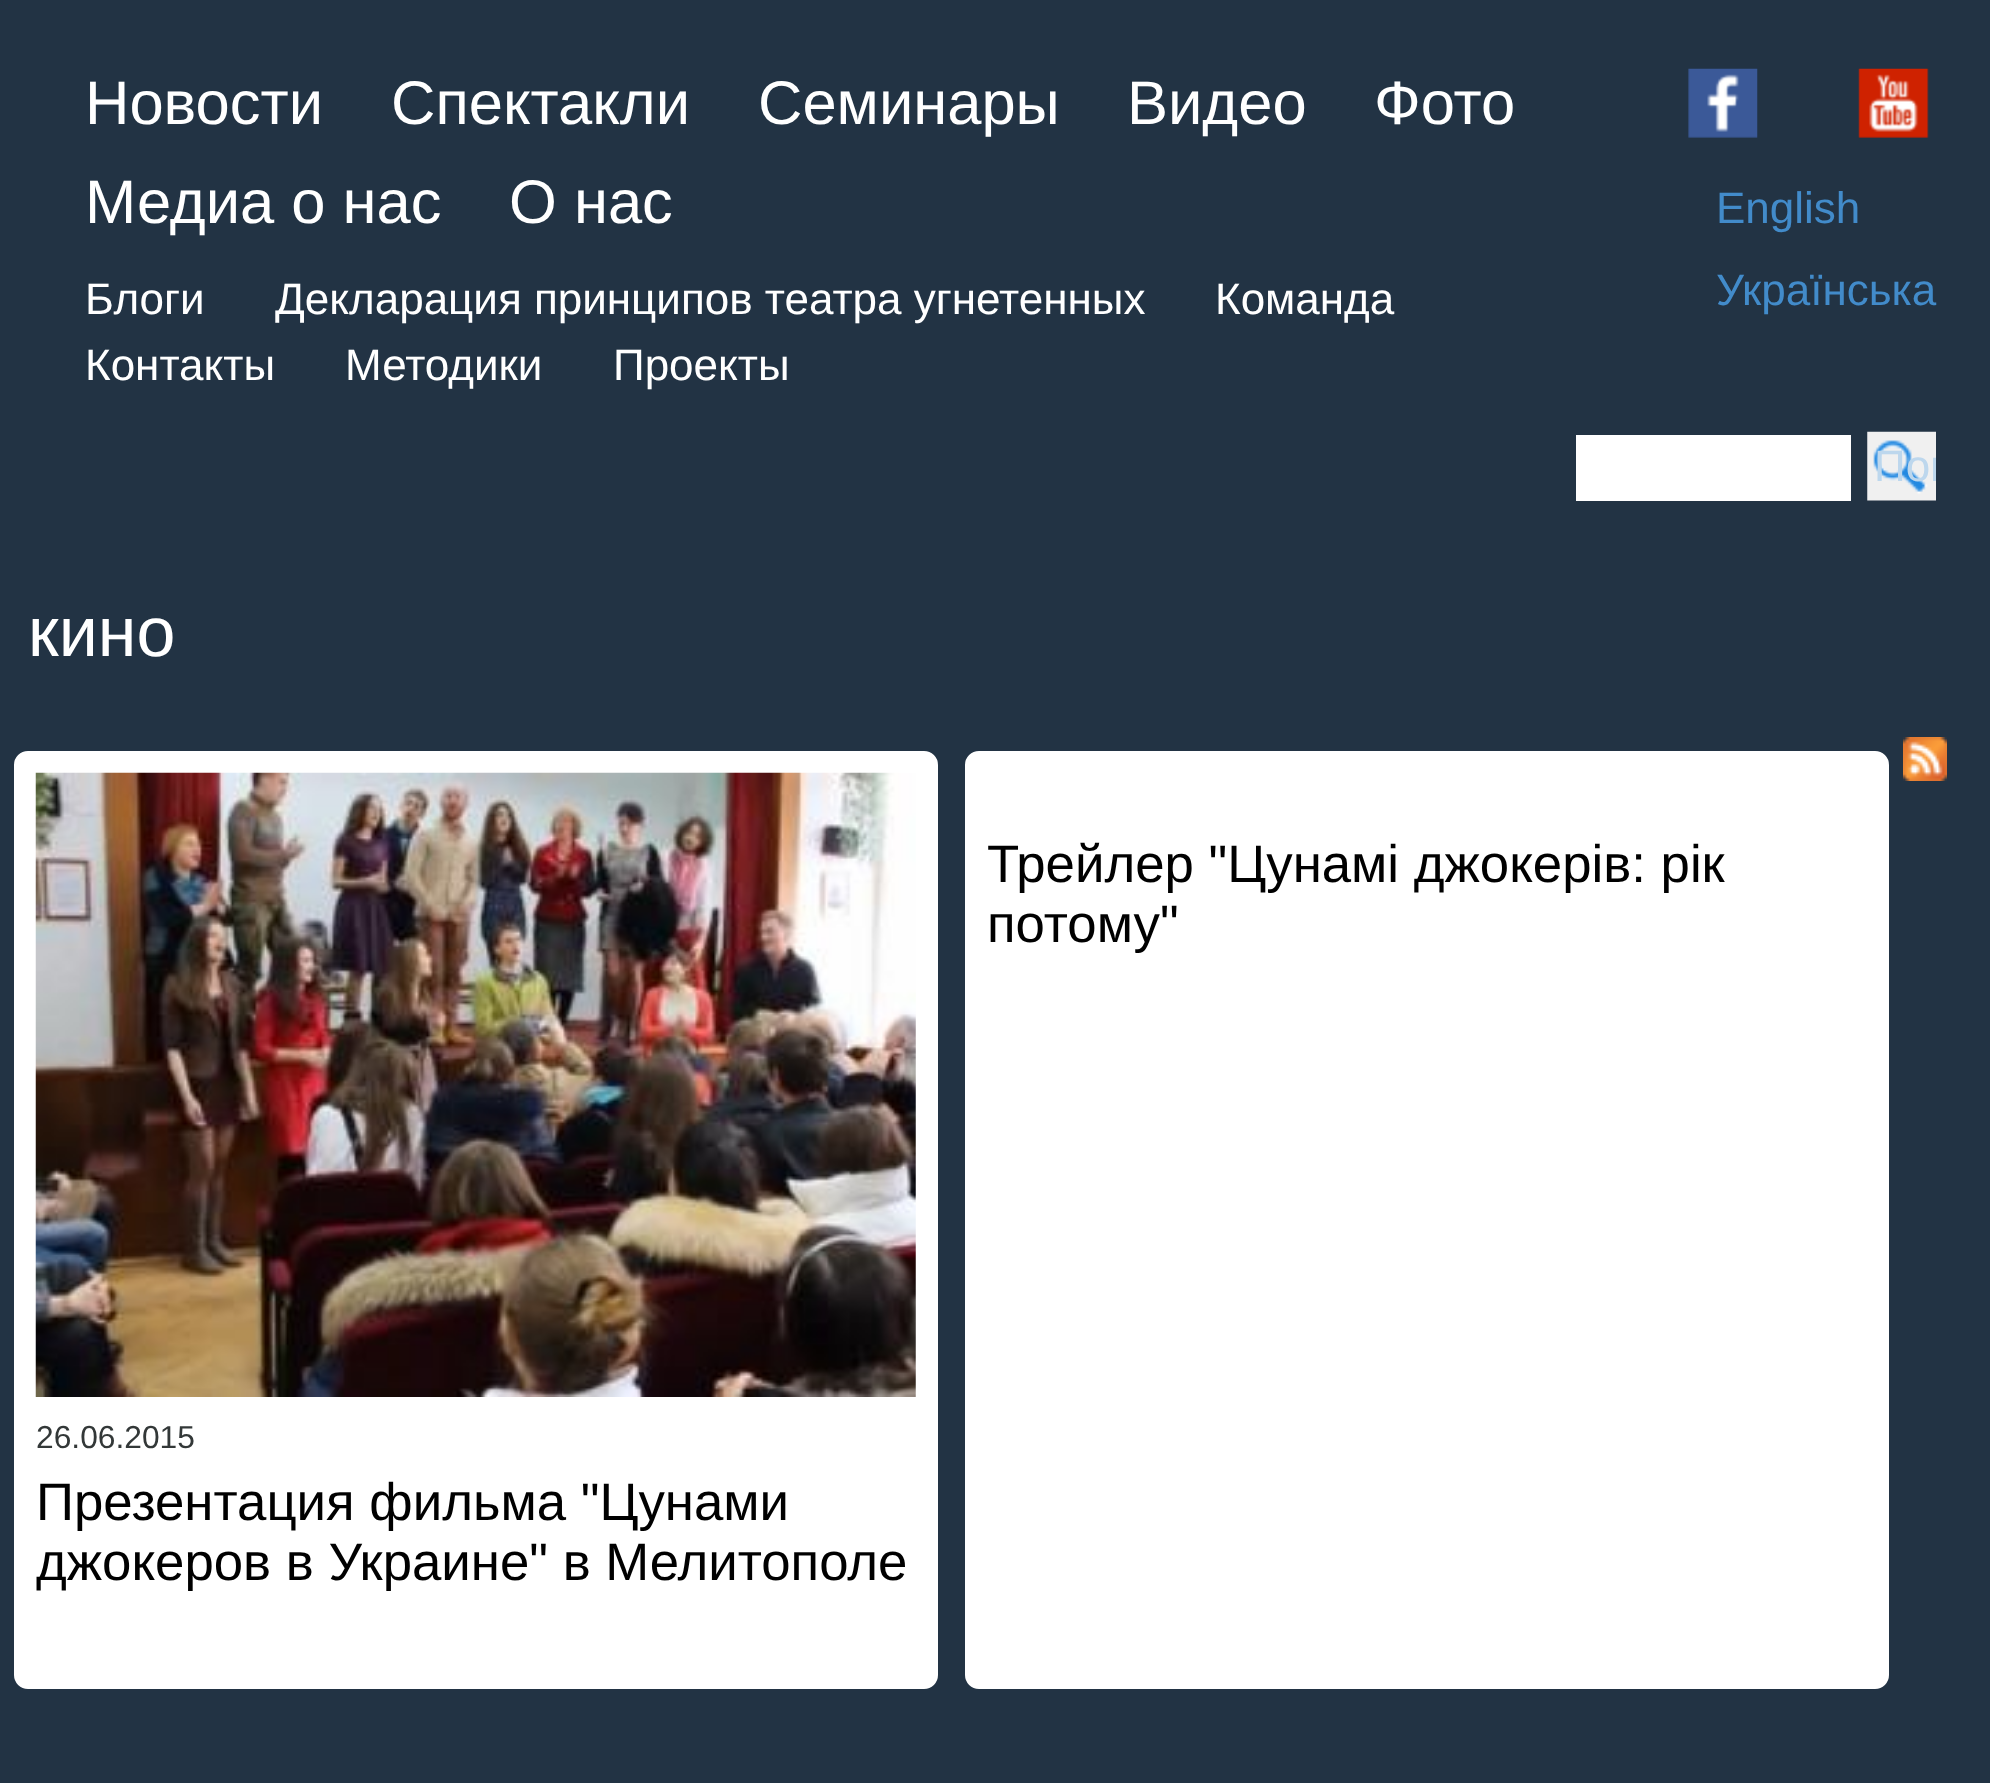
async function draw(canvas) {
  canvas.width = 1990
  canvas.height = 1783
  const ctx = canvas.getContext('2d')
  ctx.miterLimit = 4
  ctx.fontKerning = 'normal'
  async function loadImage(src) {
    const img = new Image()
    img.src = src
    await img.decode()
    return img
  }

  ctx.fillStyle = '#234'
  ctx.fillRect(0, 0, 1990, 1783)
  ctx.font = '61.5px Liberation Sans'
  ctx.fillStyle = '#fff'
  ctx.fillText('Новости', 85, 124)
  ctx.fillText('Спектакли', 391, 124)
  ctx.fillText('Семинары', 758, 124)
  ctx.fillText('Видео', 1127, 124)
  ctx.fillText('Фото', 1374, 124)
  ctx.fillText('Медиа о нас', 85, 223)
  ctx.fillText('О нас', 509, 223)
  ctx.drawImage(await loadImage('image0.png'), 1688, 68, 70, 70)
  ctx.drawImage(await loadImage('image1.png'), 1858, 68, 71, 70)
  ctx.font = '44px Liberation Sans'
  ctx.fillStyle = '#428bca'
  ctx.fillText('English', 1716, 223)
  ctx.fillText('Українська', 1716, 305)
  ctx.fillStyle = '#fff'
  ctx.fillText('Блоги', 85, 314)
  ctx.fillText('Декларация принципов театра угнетенных', 275, 314)
  ctx.fillText('Команда', 1215, 314)
  ctx.fillText('Контакты', 85, 380)
  ctx.fillText('Методики', 345, 380)
  ctx.fillText('Проекты', 613, 380)
  ctx.fillRect(1576, 435, 275, 66)
  ctx.drawImage(await loadImage('image2.png'), 1867, 431, 69, 70)
  ctx.save()
  ctx.beginPath()
  ctx.rect(1867, 432, 69, 71)
  ctx.clip()
  ctx.fillStyle = '#bdd7ed'
  ctx.fillText('Пои', 1874, 481)
  ctx.restore()
  ctx.font = '70px Liberation Sans'
  ctx.fillText('кино', 28, 656)
  ctx.drawImage(await loadImage('image3.png'), 1903, 737, 44, 44)
  ctx.beginPath()
  ctx.roundRect(966.5, 752.5, 921, 935, 12.5)
  ctx.fill()
  ctx.strokeStyle = '#fff'
  ctx.lineWidth = 3
  ctx.stroke()
  ctx.font = '52.75px Liberation Sans'
  ctx.fillStyle = '#000'
  ctx.fillText('Трейлер "Цунамі джокерів: рік', 987, 882)
  ctx.fillText('потому"', 987, 942)
  ctx.fillStyle = '#fff'
  ctx.beginPath()
  ctx.roundRect(15.5, 752.5, 921, 935, 12.5)
  ctx.fill()
  ctx.stroke()
  ctx.drawImage(await loadImage('image4.png'), 35, 772, 881, 625)
  ctx.font = '31.75px Liberation Sans'
  ctx.fillStyle = '#333838'
  ctx.fillText('26.06.2015', 36, 1448)
  ctx.font = '52.75px Liberation Sans'
  ctx.fillStyle = '#000'
  ctx.fillText('Презентация фильма "Цунами', 36, 1520)
  ctx.fillText('джокеров в Украине" в Мелитополе', 36, 1580)
}

draw(document.querySelector('canvas'))
